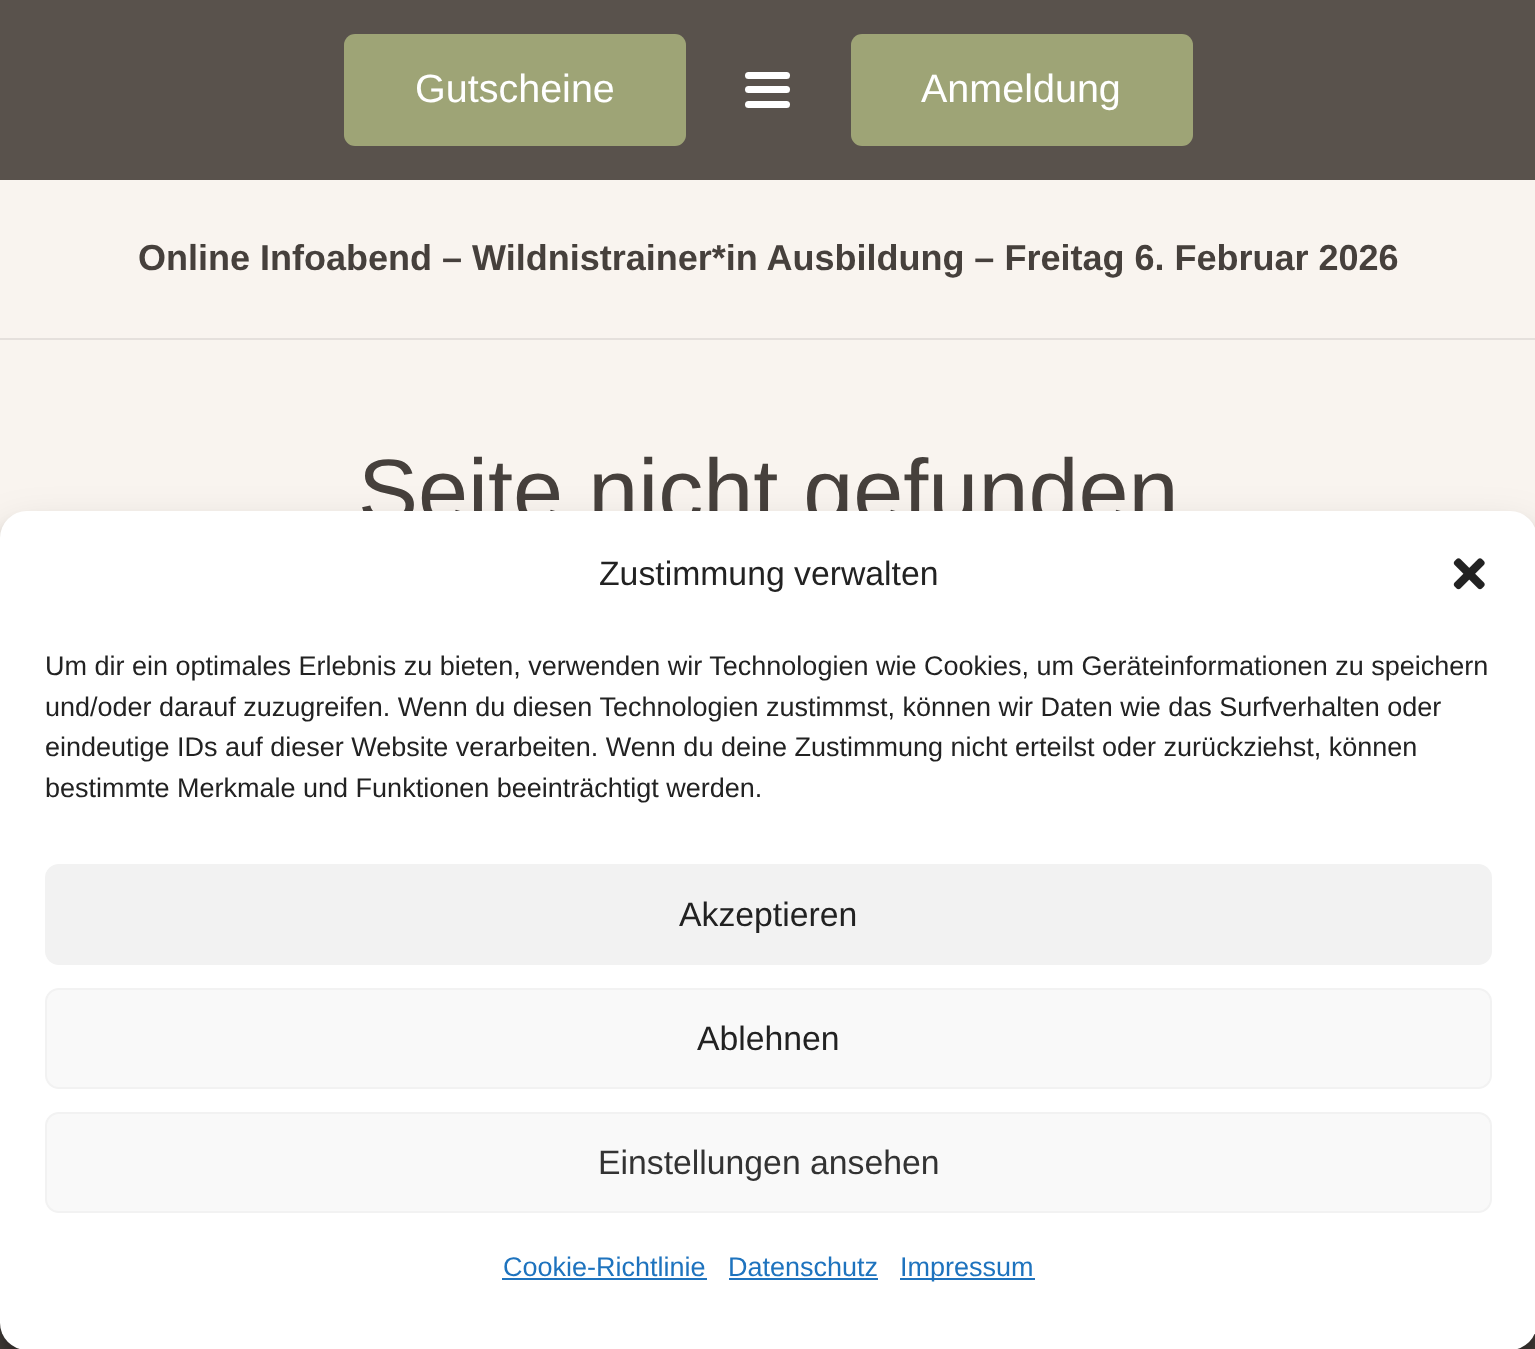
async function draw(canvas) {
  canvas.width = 1535
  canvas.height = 1349
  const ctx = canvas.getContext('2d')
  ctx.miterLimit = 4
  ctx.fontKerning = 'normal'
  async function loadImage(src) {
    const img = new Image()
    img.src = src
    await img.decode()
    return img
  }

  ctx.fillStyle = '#f9f4ef'
  ctx.fillRect(0, 0, 1535, 1349)
  ctx.fillStyle = '#59524c'
  ctx.fillRect(0, 0, 1535, 180)
  ctx.fillStyle = '#9ea476'
  ctx.beginPath()
  ctx.roundRect(344, 34, 342, 112, 11)
  ctx.fill()
  ctx.font = '39.5px Liberation Sans'
  ctx.fillStyle = '#fff'
  ctx.fillText('Gutscheine', 415, 102)
  ctx.beginPath()
  ctx.roundRect(745, 86, 45, 7, 3.5)
  ctx.fill()
  ctx.beginPath()
  ctx.roundRect(745, 72, 45, 7, 3.5)
  ctx.fill()
  ctx.beginPath()
  ctx.roundRect(745, 101, 45, 7, 3.5)
  ctx.fill()
  ctx.fillStyle = '#9ea476'
  ctx.beginPath()
  ctx.roundRect(851, 34, 342, 112, 11)
  ctx.fill()
  ctx.fillStyle = '#fff'
  ctx.fillText('Anmeldung', 921, 102)
  ctx.fillStyle = '#e5e0dc'
  ctx.beginPath()
  ctx.moveTo(0, 338)
  ctx.lineTo(0, 340)
  ctx.lineTo(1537, 340)
  ctx.lineTo(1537, 182)
  ctx.lineTo(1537, 338)
  ctx.closePath()
  ctx.fill()
  ctx.font = 'bold 36px Liberation Sans'
  ctx.fillStyle = '#46403c'
  ctx.fillText('Online Infoabend – Wildnistrainer*in Ausbildung – Freitag 6. Februar 2026', 138, 270)
  ctx.font = '90px Liberation Sans'
  ctx.fillText('Seite nicht gefunden', 358, 522)
  ctx.fillRect(0, 1323, 1535, 26)
  ctx.fillStyle = '#0000003b'
  ctx.filter = 'blur(7px)'
  ctx.beginPath()
  ctx.roundRect(0, 524, 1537, 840, 27)
  ctx.fill()
  ctx.filter = 'none'
  ctx.fillStyle = '#00000030'
  ctx.filter = 'blur(22.5px)'
  ctx.beginPath()
  ctx.roundRect(0, 533, 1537, 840, 27)
  ctx.fill()
  ctx.filter = 'none'
  ctx.fillStyle = '#fff'
  ctx.beginPath()
  ctx.roundRect(0, 511, 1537, 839, 27)
  ctx.fill()
  ctx.font = '33.75px Liberation Sans'
  ctx.fillStyle = '#222'
  ctx.fillText('Zustimmung verwalten', 599, 585)
  ctx.drawImage(await loadImage('image0.png'), 1453, 558, 32, 32)
  ctx.font = '27px Liberation Sans'
  ctx.fillText('Um dir ein optimales Erlebnis zu bieten, verwenden wir Technologien wie Cookies, um Geräteinformationen zu speichern', 45, 675)
  ctx.fillText('und/oder darauf zuzugreifen. Wenn du diesen Technologien zustimmst, können wir Daten wie das Surfverhalten oder', 45, 716)
  ctx.fillText('eindeutige IDs auf dieser Website verarbeiten. Wenn du deine Zustimmung nicht erteilst oder zurückziehst, können', 45, 756)
  ctx.fillText('bestimmte Merkmale und Funktionen beeinträchtigt werden.', 45, 797)
  ctx.fillStyle = '#f2f2f2'
  ctx.beginPath()
  ctx.roundRect(46, 865, 1445, 99, 13)
  ctx.fill()
  ctx.strokeStyle = '#f2f2f2'
  ctx.lineWidth = 2
  ctx.stroke()
  ctx.font = '33.75px Liberation Sans'
  ctx.fillStyle = '#222'
  ctx.fillText('Akzeptieren', 679, 926)
  ctx.fillStyle = '#f9f9f9'
  ctx.beginPath()
  ctx.roundRect(46, 989, 1445, 99, 13)
  ctx.fill()
  ctx.stroke()
  ctx.fillStyle = '#222'
  ctx.fillText('Ablehnen', 697, 1050)
  ctx.fillStyle = '#f9f9f9'
  ctx.beginPath()
  ctx.roundRect(46, 1113, 1445, 99, 13)
  ctx.fill()
  ctx.stroke()
  ctx.fillStyle = '#333'
  ctx.fillText('Einstellungen ansehen', 598, 1174)
  ctx.font = '27px Liberation Sans'
  ctx.fillStyle = '#1e73be'
  ctx.fillText('Cookie-Richtlinie', 503, 1276)
  ctx.fillRect(502, 1278, 205, 2)
  ctx.fillText('Datenschutz', 728, 1276)
  ctx.fillRect(729, 1278, 149, 2)
  ctx.fillRect(900, 1278, 135, 2)
  ctx.fillText('Impressum', 900, 1276)
}

draw(document.querySelector('canvas'))
